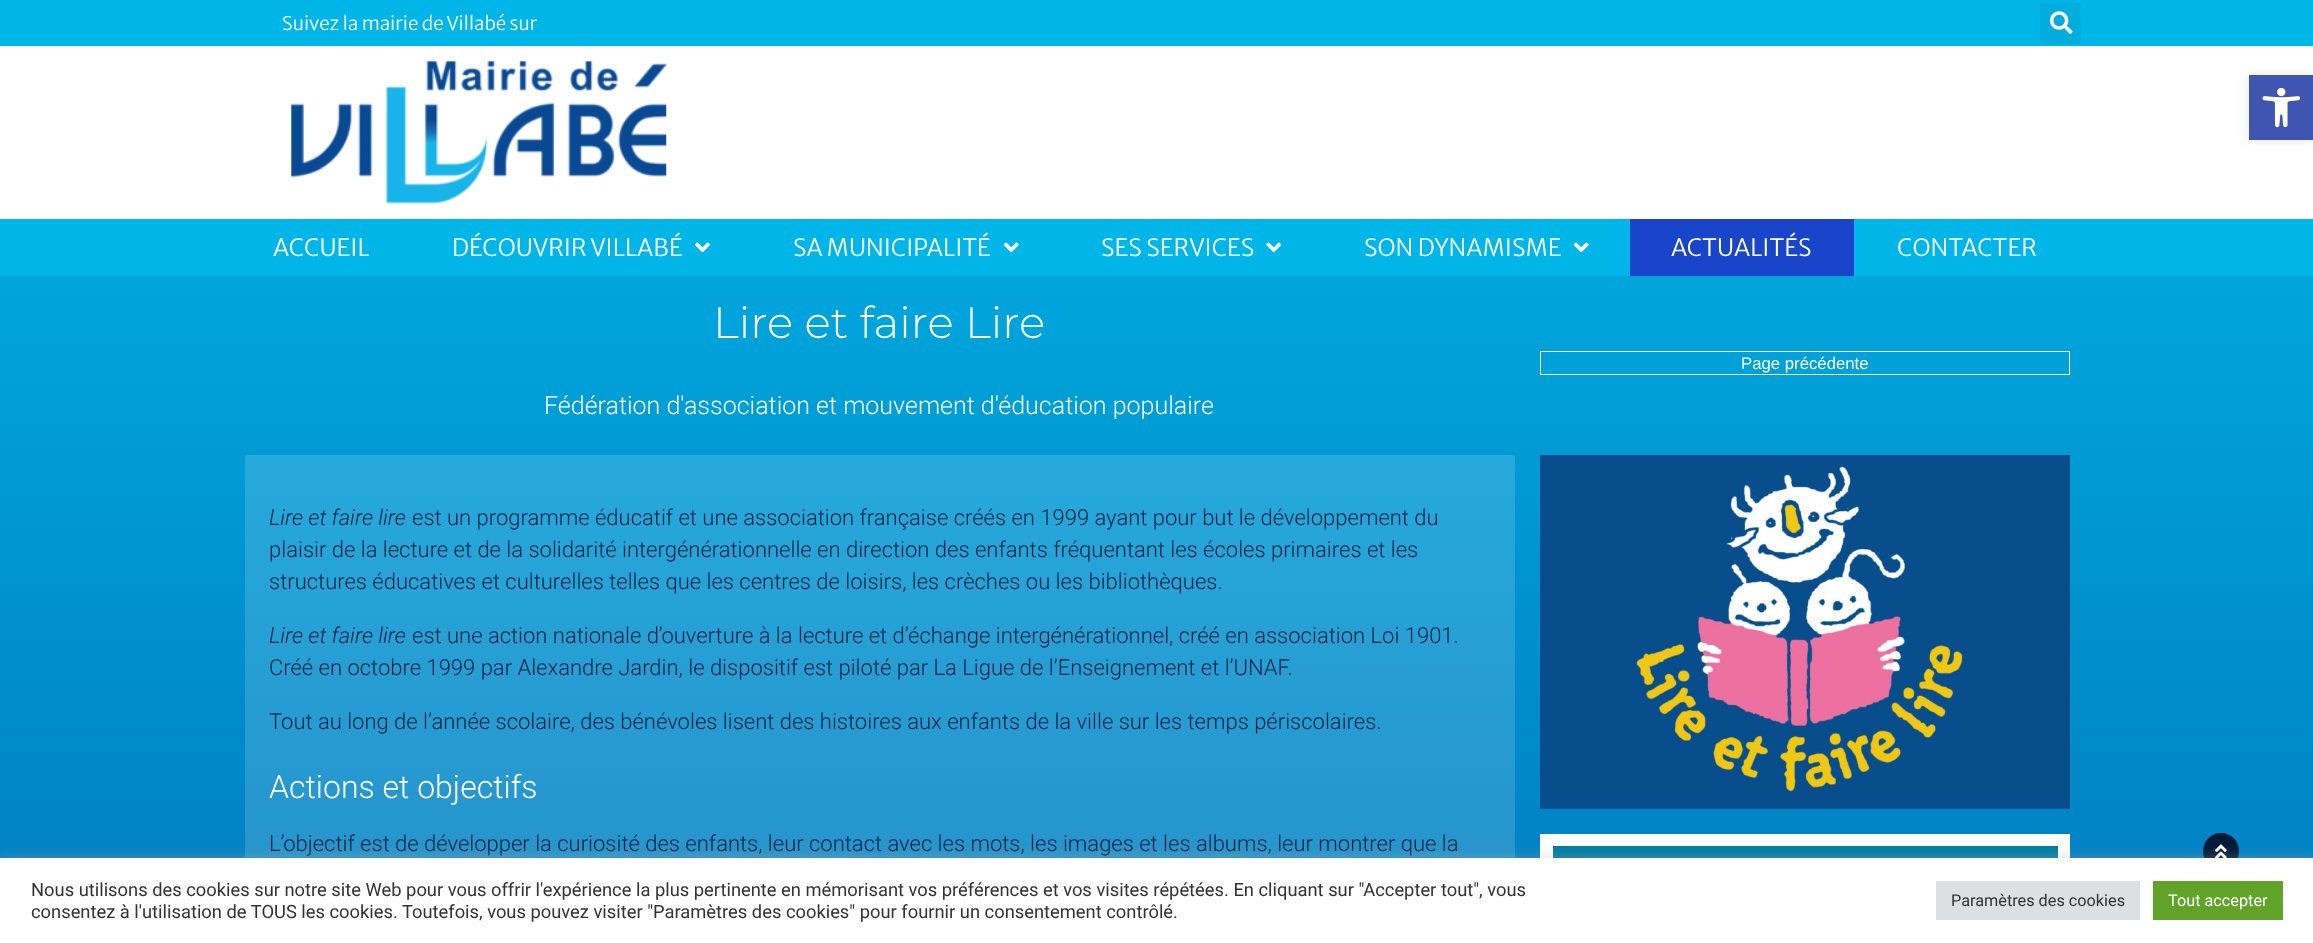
async function draw(canvas) {
  canvas.width = 2313
  canvas.height = 943
  const ctx = canvas.getContext('2d')
  ctx.miterLimit = 4
  ctx.fontKerning = 'normal'
  async function loadImage(src) {
    const img = new Image()
    img.src = src
    await img.decode()
    return img
  }
  let gradient

  ctx.fillStyle = '#fff'
  ctx.fillRect(0, 0, 2313, 943)
  gradient = ctx.createLinearGradient(1157, 0, 1157, 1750)
  gradient.addColorStop(0, '#00b6e8')
  gradient.addColorStop(0.73, '#006ab3')
  ctx.fillStyle = gradient
  ctx.fillRect(0, 276, 2313, 582)
  ctx.fillStyle = '#00b6e8'
  ctx.fillRect(0, 0, 2313, 46)
  ctx.font = '300 18.75px Merriweather Sans'
  ctx.fillStyle = '#fff'
  ctx.fillText('Suivez la mairie de Villabé sur', 282, 30)
  ctx.fillStyle = '#00addc'
  ctx.beginPath()
  ctx.roundRect(2040, 3, 41, 41, 4)
  ctx.fill()
  ctx.drawImage(await loadImage('image0.png'), 2049, 11, 24, 23)
  ctx.drawImage(await loadImage('image1.png'), 291, 61, 376, 143)
  ctx.fillStyle = '#00b6e8'
  ctx.fillRect(0, 219, 2313, 57)
  ctx.font = '300 23.75px Merriweather Sans'
  ctx.fillStyle = '#fff'
  ctx.fillText('ACCUEIL', 273, 256)
  ctx.fillText('DÉCOUVRIR VILLABÉ', 452, 256)
  ctx.drawImage(await loadImage('image2.png'), 695, 242, 15, 11)
  ctx.fillText('SA MUNICIPALITÉ', 793, 256)
  ctx.drawImage(await loadImage('image3.png'), 1003, 242, 16, 11)
  ctx.fillText('SES SERVICES', 1101, 256)
  ctx.drawImage(await loadImage('image4.png'), 1266, 242, 16, 11)
  ctx.fillText('SON DYNAMISME', 1364, 256)
  ctx.drawImage(await loadImage('image3.png'), 1573, 242, 16, 11)
  ctx.fillStyle = '#1845ca'
  ctx.fillRect(1630, 219, 224, 57)
  ctx.fillStyle = '#fff'
  ctx.fillText('ACTUALITÉS', 1671, 256)
  ctx.fillText('CONTACTER', 1897, 256)
  ctx.fillStyle = '#0000001a'
  ctx.filter = 'blur(6px)'
  ctx.beginPath()
  ctx.rect(2249, 75, 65, 65)
  ctx.fill()
  ctx.filter = 'none'
  ctx.fillStyle = '#4054b2'
  ctx.fillRect(2249, 75, 64, 65)
  ctx.drawImage(await loadImage('image5.png'), 2262, 88, 38, 40)
  ctx.font = '300 44px Montserrat'
  ctx.fillStyle = '#fff'
  ctx.fillText('Lire et faire Lire', 713, 338)
  ctx.font = '300 25px Roboto'
  ctx.fillText('Fédération d\'association et mouvement d\'éducation populaire', 544, 414)
  ctx.strokeStyle = '#fff'
  ctx.strokeRect(1540.5, 351.5, 529, 23)
  ctx.font = '16.75px Liberation Sans'
  ctx.fillText('Page précédente', 1741, 369)
  ctx.fillStyle = '#ffffff26'
  ctx.beginPath()
  ctx.roundRect(245, 455, 1270, 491, 2.5)
  ctx.fill()
  ctx.font = 'italic 300 22px Roboto'
  ctx.fillStyle = '#032142'
  ctx.fillText('Lire et faire lire', 269, 525)
  ctx.font = '300 22px Roboto'
  ctx.fillText('est un programme éducatif et une association française créés en 1999 ayant pour but le développement du', 412, 525)
  ctx.fillText('plaisir de la lecture et de la solidarité intergénérationnelle en direction des enfants fréquentant les écoles primaires et les', 269, 557)
  ctx.fillText('structures éducatives et culturelles telles que les centres de loisirs, les crèches ou les bibliothèques.', 269, 589)
  ctx.font = 'italic 300 22px Roboto'
  ctx.fillText('Lire et faire lire', 269, 643)
  ctx.font = '300 22px Roboto'
  ctx.fillText('est une action nationale d’ouverture à la lecture et d’échange intergénérationnel, créé en association Loi 1901.', 412, 643)
  ctx.fillText('Créé en octobre 1999 par Alexandre Jardin, le dispositif est piloté par La Ligue de l’Enseignement et l’UNAF.', 269, 675)
  ctx.fillText('Tout au long de l’année scolaire, des bénévoles lisent des histoires aux enfants de la ville sur les temps périscolaires.', 269, 729)
  ctx.font = '300 32px Roboto'
  ctx.fillStyle = '#fff'
  ctx.fillText('Actions et objectifs', 269, 798)
  ctx.font = '300 22px Roboto'
  ctx.fillStyle = '#032142'
  ctx.fillText('L’objectif est de développer la curiosité des enfants, leur contact avec les mots, les images et les albums, leur montrer que la', 269, 851)
  ctx.drawImage(await loadImage('image6.png'), 1540, 455, 530, 354)
  ctx.fillStyle = '#fff'
  ctx.fillRect(1540, 834, 530, 24)
  ctx.fillStyle = '#007ea4'
  ctx.fillRect(1553, 846, 505, 12)
  ctx.fillStyle = '#001c38'
  ctx.beginPath()
  ctx.arc(2221, 851, 18, 0, 2 * Math.PI)
  ctx.fill()
  ctx.drawImage(await loadImage('image7.png'), 2215, 844, 12, 14)
  ctx.fillStyle = '#acabab4d'
  ctx.filter = 'blur(6px)'
  ctx.beginPath()
  ctx.rect(0, 856, 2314, 87)
  ctx.fill()
  ctx.filter = 'none'
  ctx.fillStyle = '#fff'
  ctx.fillRect(0, 858, 2313, 85)
  ctx.font = '18.33px Roboto'
  ctx.fillStyle = '#333'
  ctx.fillText('Nous utilisons des cookies sur notre site Web pour vous offrir l\'expérience la plus pertinente en mémorisant vos préférences et vos visites répétées. En cliquant sur "Accepter tout", vous', 31, 896)
  ctx.fillText('consentez à l\'utilisation de TOUS les cookies. Toutefois, vous pouvez visiter "Paramètres des cookies" pour fournir un consentement contrôlé.', 31, 918)
  ctx.fillStyle = '#dedfe0'
  ctx.fillRect(1936, 881, 204, 39)
  ctx.font = '16.25px Roboto'
  ctx.fillStyle = '#333'
  ctx.fillText('Paramètres des cookies', 1951, 906)
  ctx.fillStyle = '#61a229'
  ctx.fillRect(2153, 881, 130, 39)
  ctx.fillStyle = '#fff'
  ctx.fillText('Tout accepter', 2168, 906)
}

draw(document.querySelector('canvas'))
